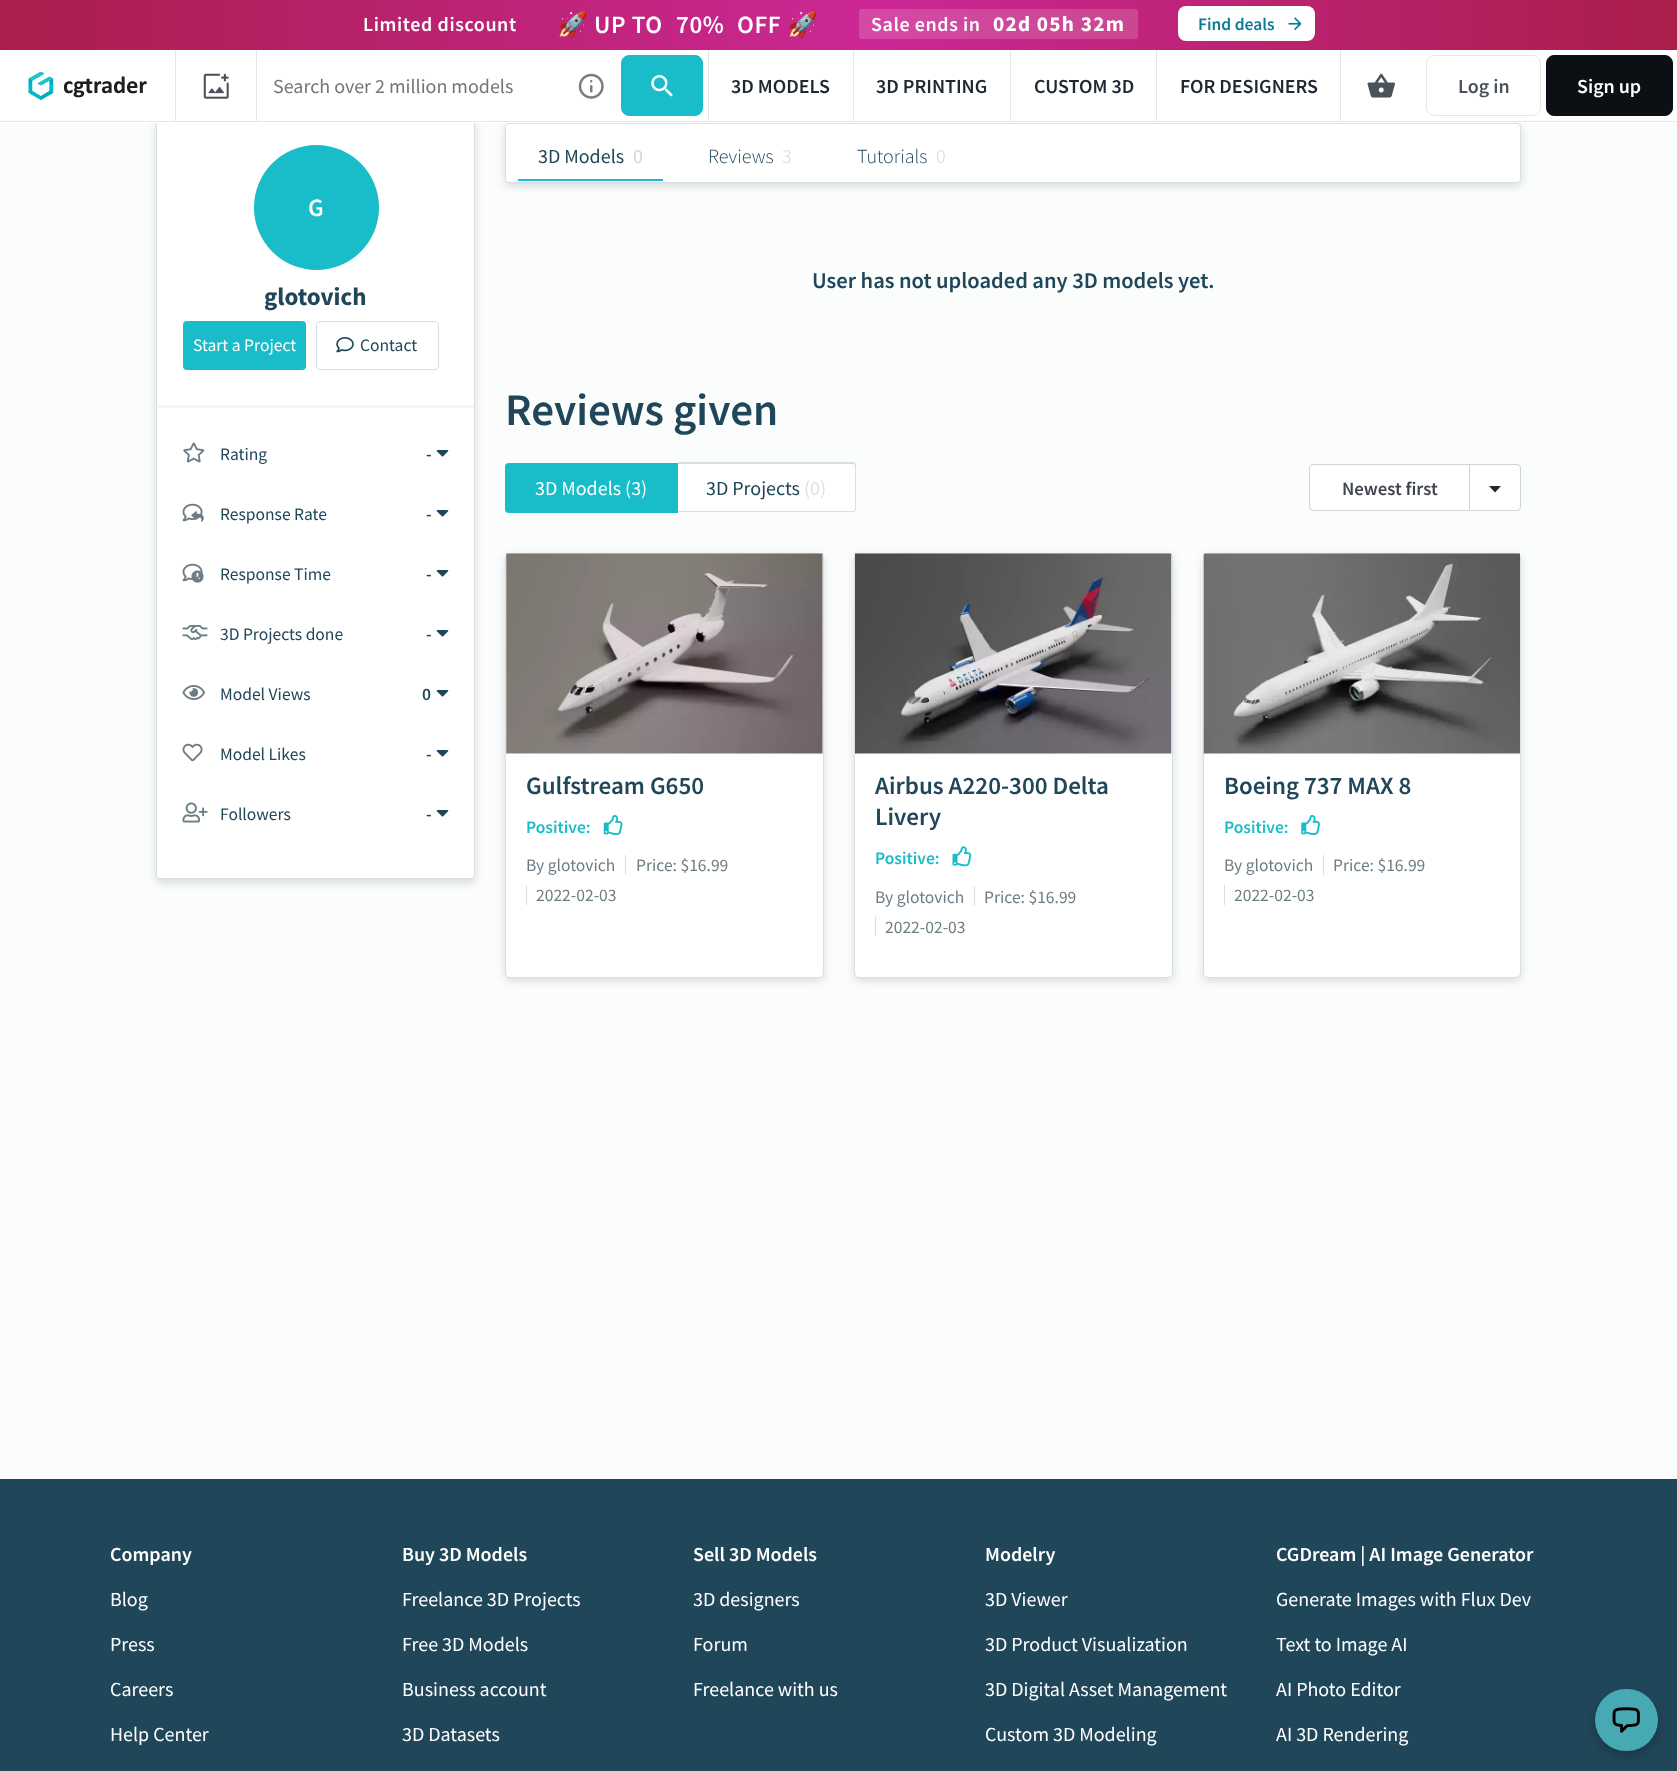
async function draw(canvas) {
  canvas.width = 1677
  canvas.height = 1771
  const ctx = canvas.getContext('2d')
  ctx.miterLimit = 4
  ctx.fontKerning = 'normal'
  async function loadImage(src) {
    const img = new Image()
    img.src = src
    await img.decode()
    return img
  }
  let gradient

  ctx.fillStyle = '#fbfcfc'
  ctx.fillRect(0, 0, 1677, 1771)
  ctx.fillStyle = '#0e1e2626'
  ctx.filter = 'blur(4px)'
  ctx.beginPath()
  ctx.roundRect(156, 123, 319, 760, 4)
  ctx.fill()
  ctx.filter = 'none'
  ctx.fillStyle = '#fff'
  ctx.beginPath()
  ctx.roundRect(156.5, 119.5, 318, 759, 3.5)
  ctx.fill()
  ctx.strokeStyle = '#d7dfe3'
  ctx.stroke()
  ctx.fillStyle = '#0e1e2626'
  ctx.filter = 'blur(4px)'
  ctx.beginPath()
  ctx.roundRect(505, 126, 1016, 60, 4)
  ctx.fill()
  ctx.filter = 'none'
  ctx.fillStyle = '#fff'
  ctx.fillRect(0, 50, 1677, 73)
  gradient = ctx.createLinearGradient(0, 23, 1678, 24)
  gradient.addColorStop(0, '#a91e4c')
  gradient.addColorStop(0.52, '#cc2795')
  gradient.addColorStop(1, '#a91e4a')
  ctx.fillStyle = gradient
  ctx.fillRect(0, 0, 1677, 50)
  ctx.letterSpacing = '0.6px'
  ctx.font = '600 20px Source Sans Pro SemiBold'
  ctx.fillStyle = '#fff'
  ctx.fillText('Limited discount', 363, 31)
  ctx.font = 'bold 25px Noto Color Emoji'
  ctx.fillText('🚀', 557, 33)
  ctx.font = '600 25px Source Sans Pro SemiBold'
  ctx.fillText('UP TO', 594, 33)
  ctx.fillText('70%', 676, 33)
  ctx.fillText('OFF', 737, 33)
  ctx.font = 'bold 25px Noto Color Emoji'
  ctx.fillText('🚀', 787, 33)
  ctx.fillStyle = '#ffffff29'
  ctx.beginPath()
  ctx.roundRect(859, 9, 279, 30, 2.5)
  ctx.fill()
  ctx.font = '600 20px Source Sans Pro SemiBold'
  ctx.fillStyle = '#fff'
  ctx.fillText('Sale ends in', 871, 31)
  ctx.letterSpacing = '1.25px'
  ctx.font = 'bold 21.25px Source Sans Pro'
  ctx.fillText('02d 05h 32m', 993, 31)
  ctx.beginPath()
  ctx.roundRect(1178, 6, 137, 35, 8)
  ctx.fill()
  ctx.letterSpacing = '0px'
  ctx.font = '600 17.5px Source Sans Pro SemiBold'
  ctx.fillStyle = '#097b95'
  ctx.fillText('Find deals', 1198, 30)
  ctx.drawImage(await loadImage('image0.png'), 1288, 17, 14, 13)
  ctx.fillStyle = '#e4e5e6'
  ctx.fillRect(0, 121, 1677, 1)
  ctx.drawImage(await loadImage('image1.png'), 28, 71, 119, 29)
  ctx.fillRect(708, 50, 1, 71)
  ctx.fillRect(175, 50, 1, 71)
  ctx.fillRect(256, 50, 1, 71)
  ctx.drawImage(await loadImage('image2.png'), 203, 73, 26, 26)
  ctx.font = '20px Source Sans Pro'
  ctx.fillStyle = '#757575'
  ctx.fillText('Search over 2 million models', 273, 93)
  ctx.drawImage(await loadImage('image3.png'), 578, 73, 26, 26)
  ctx.fillStyle = '#19bcc9'
  ctx.beginPath()
  ctx.roundRect(621.5, 55.5, 81, 60, 7.5)
  ctx.fill()
  ctx.strokeStyle = '#19bcc9'
  ctx.stroke()
  ctx.drawImage(await loadImage('image4.png'), 651, 75, 22, 22)
  ctx.fillStyle = '#e4e5e6'
  ctx.fillRect(853, 50, 1, 71)
  ctx.font = '600 20px Source Sans Pro SemiBold'
  ctx.fillStyle = '#1e2732'
  ctx.fillText('3D MODELS', 731, 93)
  ctx.fillStyle = '#e4e5e6'
  ctx.fillRect(1010, 50, 1, 71)
  ctx.fillStyle = '#1e2732'
  ctx.fillText('3D PRINTING', 876, 93)
  ctx.fillStyle = '#e4e5e6'
  ctx.fillRect(1156, 50, 1, 71)
  ctx.fillStyle = '#1e2732'
  ctx.fillText('CUSTOM 3D', 1034, 93)
  ctx.fillStyle = '#e4e5e6'
  ctx.fillRect(1340, 50, 1, 71)
  ctx.fillStyle = '#1e2732'
  ctx.fillText('FOR DESIGNERS', 1180, 93)
  ctx.drawImage(await loadImage('image5.png'), 1367, 73, 28, 25)
  ctx.beginPath()
  ctx.roundRect(1426.5, 55.5, 114, 60, 7.5)
  ctx.strokeStyle = '#e4e5e6'
  ctx.stroke()
  ctx.fillStyle = '#4b525b'
  ctx.fillText('Log in', 1458, 93)
  ctx.fillStyle = '#0c1015'
  ctx.beginPath()
  ctx.roundRect(1546.5, 55.5, 126, 60, 7.5)
  ctx.fill()
  ctx.strokeStyle = '#0c1015'
  ctx.stroke()
  ctx.fillStyle = '#fff'
  ctx.fillText('Sign up', 1577, 93)
  ctx.fillStyle = '#f4f6f7'
  ctx.fillRect(158, 405, 316, 3)
  ctx.fillStyle = '#19bcc9'
  ctx.beginPath()
  ctx.arc(316.5, 207.5, 62.5, 0, 2 * Math.PI)
  ctx.fill()
  ctx.font = '600 25px Source Sans Pro SemiBold'
  ctx.fillStyle = '#fff'
  ctx.fillText('G', 308, 216)
  ctx.font = 'bold 25px Source Sans Pro'
  ctx.fillStyle = '#204659'
  ctx.fillText('glotovich', 264, 305)
  ctx.fillStyle = '#19bcc9'
  ctx.beginPath()
  ctx.roundRect(183, 321, 123, 49, 4)
  ctx.fill()
  ctx.font = '17.5px Source Sans Pro'
  ctx.fillStyle = '#fff'
  ctx.fillText('Start a Project', 193, 351)
  ctx.beginPath()
  ctx.roundRect(316.5, 321.5, 122, 48, 3.5)
  ctx.strokeStyle = '#d7dfe3'
  ctx.stroke()
  ctx.drawImage(await loadImage('image6.png'), 336, 337, 18, 16)
  ctx.fillStyle = '#204659'
  ctx.fillText('Contact', 360, 351)
  ctx.drawImage(await loadImage('image7.png'), 183, 442, 22, 21)
  ctx.fillText('Rating', 220, 460)
  ctx.font = '600 17.5px Source Sans Pro SemiBold'
  ctx.fillText('-', 426, 460)
  ctx.drawImage(await loadImage('image8.png'), 436, 450, 13, 7)
  ctx.drawImage(await loadImage('image9.png'), 182, 503, 21, 19)
  ctx.drawImage(await loadImage('image10.png'), 191, 511, 13, 11)
  ctx.font = '17.5px Source Sans Pro'
  ctx.fillText('Response Rate', 220, 520)
  ctx.font = '600 17.5px Source Sans Pro SemiBold'
  ctx.fillText('-', 426, 520)
  ctx.drawImage(await loadImage('image8.png'), 436, 510, 13, 7)
  ctx.drawImage(await loadImage('image9.png'), 182, 563, 21, 19)
  ctx.drawImage(await loadImage('image11.png'), 191, 570, 13, 13)
  ctx.font = '17.5px Source Sans Pro'
  ctx.fillText('Response Time', 220, 580)
  ctx.font = '600 17.5px Source Sans Pro SemiBold'
  ctx.fillText('-', 426, 580)
  ctx.drawImage(await loadImage('image8.png'), 436, 570, 13, 7)
  ctx.drawImage(await loadImage('image12.png'), 182, 625, 26, 15)
  ctx.font = '17.5px Source Sans Pro'
  ctx.fillText('3D Projects done', 220, 640)
  ctx.font = '600 17.5px Source Sans Pro SemiBold'
  ctx.fillText('-', 426, 640)
  ctx.drawImage(await loadImage('image8.png'), 436, 630, 13, 7)
  ctx.drawImage(await loadImage('image13.png'), 182, 685, 23, 15)
  ctx.font = '17.5px Source Sans Pro'
  ctx.fillText('Model Views', 220, 700)
  ctx.font = '600 17.5px Source Sans Pro SemiBold'
  ctx.fillText('0', 422, 700)
  ctx.drawImage(await loadImage('image8.png'), 436, 690, 13, 7)
  ctx.drawImage(await loadImage('image14.png'), 182, 743, 21, 19)
  ctx.font = '17.5px Source Sans Pro'
  ctx.fillText('Model Likes', 220, 760)
  ctx.font = '600 17.5px Source Sans Pro SemiBold'
  ctx.fillText('-', 426, 760)
  ctx.drawImage(await loadImage('image8.png'), 436, 750, 13, 7)
  ctx.drawImage(await loadImage('image15.png'), 182, 802, 26, 21)
  ctx.font = '17.5px Source Sans Pro'
  ctx.fillText('Followers', 220, 820)
  ctx.font = '600 17.5px Source Sans Pro SemiBold'
  ctx.fillText('-', 426, 820)
  ctx.drawImage(await loadImage('image8.png'), 436, 810, 13, 7)
  ctx.fillStyle = '#fff'
  ctx.beginPath()
  ctx.roundRect(505.5, 123.5, 1015, 59, 3.5)
  ctx.fill()
  ctx.stroke()
  ctx.fillStyle = '#19bcc9'
  ctx.fillRect(518, 179, 145, 2)
  ctx.font = '20px Source Sans Pro'
  ctx.fillStyle = '#204659'
  ctx.fillText('3D Models', 538, 163)
  ctx.fillStyle = '#d5d5d5'
  ctx.fillText('0', 633, 163)
  ctx.font = '300 20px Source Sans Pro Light'
  ctx.fillStyle = '#204659'
  ctx.fillText('Reviews', 708, 163)
  ctx.fillStyle = '#d5d5d5'
  ctx.fillText('3', 782, 163)
  ctx.fillStyle = '#204659'
  ctx.fillText('Tutorials', 857, 163)
  ctx.fillStyle = '#d5d5d5'
  ctx.fillText('0', 936, 163)
  ctx.font = '600 22.5px Source Sans Pro SemiBold'
  ctx.fillStyle = '#204659'
  ctx.fillText('User has not uploaded any 3D models yet.', 812, 288)
  ctx.font = '600 45px Source Sans Pro SemiBold'
  ctx.fillText('Reviews given', 505, 425)
  ctx.fillStyle = '#19bcc9'
  ctx.beginPath()
  ctx.roundRect(505, 463, 173, 50, [4, 0, 0, 4])
  ctx.fill()
  ctx.font = '20px Source Sans Pro'
  ctx.fillStyle = '#fff'
  ctx.fillText('3D Models (3)', 535, 495)
  ctx.beginPath()
  ctx.roundRect(678, 463, 178, 50, [0, 4, 4, 0])
  ctx.fill()
  ctx.fillStyle = '#d7dfe3'
  ctx.beginPath()
  ctx.moveTo(678, 462)
  ctx.lineTo(852, 462)
  ctx.bezierCurveTo(855, 462, 856, 464, 856, 466)
  ctx.lineTo(856, 509)
  ctx.bezierCurveTo(856, 511, 855, 512, 852, 512)
  ctx.lineTo(678, 512)
  ctx.closePath()
  ctx.moveTo(678, 464)
  ctx.lineTo(852, 464)
  ctx.bezierCurveTo(854, 464, 855, 465, 855, 466)
  ctx.lineTo(855, 509)
  ctx.bezierCurveTo(855, 510, 854, 511, 852, 511)
  ctx.lineTo(678, 511)
  ctx.closePath()
  ctx.fill('evenodd')
  ctx.fillStyle = '#204659'
  ctx.fillText('3D Projects', 706, 495)
  ctx.fillStyle = '#e0e0e0'
  ctx.fillText('(0)', 804, 495)
  ctx.fillStyle = '#fff'
  ctx.beginPath()
  ctx.roundRect(1309.5, 464.5, 211, 46, 3.5)
  ctx.fill()
  ctx.strokeStyle = '#ced4da'
  ctx.stroke()
  ctx.font = '600 18.75px Source Sans Pro SemiBold'
  ctx.fillStyle = '#3f444c'
  ctx.fillText('Newest first', 1342, 495)
  ctx.fillStyle = '#ced4da'
  ctx.fillRect(1469, 465, 1, 45)
  ctx.fillStyle = '#23272c'
  ctx.beginPath()
  ctx.moveTo(1489, 486)
  ctx.lineTo(1501, 486)
  ctx.lineTo(1495, 492.5)
  ctx.closePath()
  ctx.fill()
  ctx.fillStyle = '#23272c26'
  ctx.filter = 'blur(4px)'
  ctx.beginPath()
  ctx.roundRect(505, 556, 319, 425, 5)
  ctx.fill()
  ctx.filter = 'none'
  ctx.fillStyle = '#fff'
  ctx.beginPath()
  ctx.roundRect(505.5, 553.5, 318, 424, 4.5)
  ctx.fill()
  ctx.strokeStyle = '#d7dfe3'
  ctx.stroke()
  ctx.drawImage(await loadImage('image16.png'), 506, 553, 317, 201)
  ctx.font = '600 25px Source Sans Pro SemiBold'
  ctx.fillStyle = '#204659'
  ctx.fillText('Gulfstream G650', 526, 794)
  ctx.font = '600 17.5px Source Sans Pro SemiBold'
  ctx.fillStyle = '#19bcc9'
  ctx.fillText('Positive:', 526, 833)
  ctx.drawImage(await loadImage('image17.png'), 603, 815, 20, 20)
  ctx.font = '17.5px Source Sans Pro'
  ctx.fillStyle = '#6d7d85'
  ctx.fillText('By glotovich', 526, 871)
  ctx.fillStyle = '#d7dfe3'
  ctx.fillRect(625, 855, 1, 20)
  ctx.fillStyle = '#6d7d85'
  ctx.fillText('Price: $16.99', 636, 871)
  ctx.fillStyle = '#d7dfe3'
  ctx.fillRect(526, 885, 1, 20)
  ctx.fillStyle = '#6d7d85'
  ctx.fillText('2022-02-03', 536, 901)
  ctx.fillStyle = '#23272c26'
  ctx.filter = 'blur(4px)'
  ctx.beginPath()
  ctx.roundRect(854, 556, 319, 425, 5)
  ctx.fill()
  ctx.filter = 'none'
  ctx.fillStyle = '#fff'
  ctx.beginPath()
  ctx.roundRect(854.5, 553.5, 318, 424, 4.5)
  ctx.fill()
  ctx.stroke()
  ctx.drawImage(await loadImage('image18.png'), 855, 553, 317, 201)
  ctx.font = '600 25px Source Sans Pro SemiBold'
  ctx.fillStyle = '#204659'
  ctx.fillText('Airbus A220-300 Delta', 875, 794)
  ctx.fillText('Livery', 875, 825)
  ctx.font = '600 17.5px Source Sans Pro SemiBold'
  ctx.fillStyle = '#19bcc9'
  ctx.fillText('Positive:', 875, 864)
  ctx.drawImage(await loadImage('image19.png'), 952, 846, 20, 21)
  ctx.font = '17.5px Source Sans Pro'
  ctx.fillStyle = '#6d7d85'
  ctx.fillText('By glotovich', 875, 903)
  ctx.fillStyle = '#d7dfe3'
  ctx.fillRect(974, 886, 1, 20)
  ctx.fillStyle = '#6d7d85'
  ctx.fillText('Price: $16.99', 984, 903)
  ctx.fillStyle = '#d7dfe3'
  ctx.fillRect(875, 916, 1, 20)
  ctx.fillStyle = '#6d7d85'
  ctx.fillText('2022-02-03', 885, 933)
  ctx.fillStyle = '#23272c26'
  ctx.filter = 'blur(4px)'
  ctx.beginPath()
  ctx.roundRect(1203, 556, 318, 425, 5)
  ctx.fill()
  ctx.filter = 'none'
  ctx.fillStyle = '#fff'
  ctx.beginPath()
  ctx.roundRect(1203.5, 553.5, 317, 424, 4.5)
  ctx.fill()
  ctx.stroke()
  ctx.drawImage(await loadImage('image20.png'), 1203, 553, 317, 201)
  ctx.font = '600 25px Source Sans Pro SemiBold'
  ctx.fillStyle = '#204659'
  ctx.fillText('Boeing 737 MAX 8', 1224, 794)
  ctx.font = '600 17.5px Source Sans Pro SemiBold'
  ctx.fillStyle = '#19bcc9'
  ctx.fillText('Positive:', 1224, 833)
  ctx.drawImage(await loadImage('image21.png'), 1301, 815, 19, 20)
  ctx.font = '17.5px Source Sans Pro'
  ctx.fillStyle = '#6d7d85'
  ctx.fillText('By glotovich', 1224, 871)
  ctx.fillStyle = '#d7dfe3'
  ctx.fillRect(1323, 855, 1, 20)
  ctx.fillStyle = '#6d7d85'
  ctx.fillText('Price: $16.99', 1333, 871)
  ctx.fillStyle = '#d7dfe3'
  ctx.fillRect(1224, 885, 1, 20)
  ctx.fillStyle = '#6d7d85'
  ctx.fillText('2022-02-03', 1234, 901)
  ctx.fillStyle = '#204659'
  ctx.fillRect(0, 1479, 1677, 292)
  ctx.font = '600 20px Source Sans Pro SemiBold'
  ctx.fillStyle = '#fff'
  ctx.fillText('Company', 110, 1561)
  ctx.font = '20px Source Sans Pro'
  ctx.fillText('Blog', 110, 1606)
  ctx.fillText('Press', 110, 1651)
  ctx.fillText('Careers', 110, 1696)
  ctx.fillText('Help Center', 110, 1741)
  ctx.font = '600 20px Source Sans Pro SemiBold'
  ctx.fillText('Buy 3D Models', 402, 1561)
  ctx.font = '20px Source Sans Pro'
  ctx.fillText('Freelance 3D Projects', 402, 1606)
  ctx.fillText('Free 3D Models', 402, 1651)
  ctx.fillText('Business account', 402, 1696)
  ctx.fillText('3D Datasets', 402, 1741)
  ctx.font = '600 20px Source Sans Pro SemiBold'
  ctx.fillText('Sell 3D Models', 693, 1561)
  ctx.font = '20px Source Sans Pro'
  ctx.fillText('3D designers', 693, 1606)
  ctx.fillText('Forum', 693, 1651)
  ctx.fillText('Freelance with us', 693, 1696)
  ctx.font = '600 20px Source Sans Pro SemiBold'
  ctx.fillText('Modelry', 985, 1561)
  ctx.font = '20px Source Sans Pro'
  ctx.fillText('3D Viewer', 985, 1606)
  ctx.fillText('3D Product Visualization', 985, 1651)
  ctx.fillText('3D Digital Asset Management', 985, 1696)
  ctx.fillText('Custom 3D Modeling', 985, 1741)
  ctx.font = '600 20px Source Sans Pro SemiBold'
  ctx.fillText('CGDream | AI Image Generator', 1276, 1561)
  ctx.font = '20px Source Sans Pro'
  ctx.fillText('Generate Images with Flux Dev', 1276, 1606)
  ctx.fillText('Text to Image AI', 1276, 1651)
  ctx.fillText('AI Photo Editor', 1276, 1696)
  ctx.fillText('AI 3D Rendering', 1276, 1741)
  ctx.fillStyle = '#00000033'
  ctx.filter = 'blur(5px)'
  ctx.beginPath()
  ctx.roundRect(1595, 1694, 63, 62, 31)
  ctx.fill()
  ctx.filter = 'none'
  ctx.fillStyle = '#46a9b4'
  ctx.beginPath()
  ctx.roundRect(1595, 1689, 63, 62, 31)
  ctx.fill()
  ctx.drawImage(await loadImage('image22.png'), 1612, 1707, 28, 26)
}

draw(document.querySelector('canvas'))
